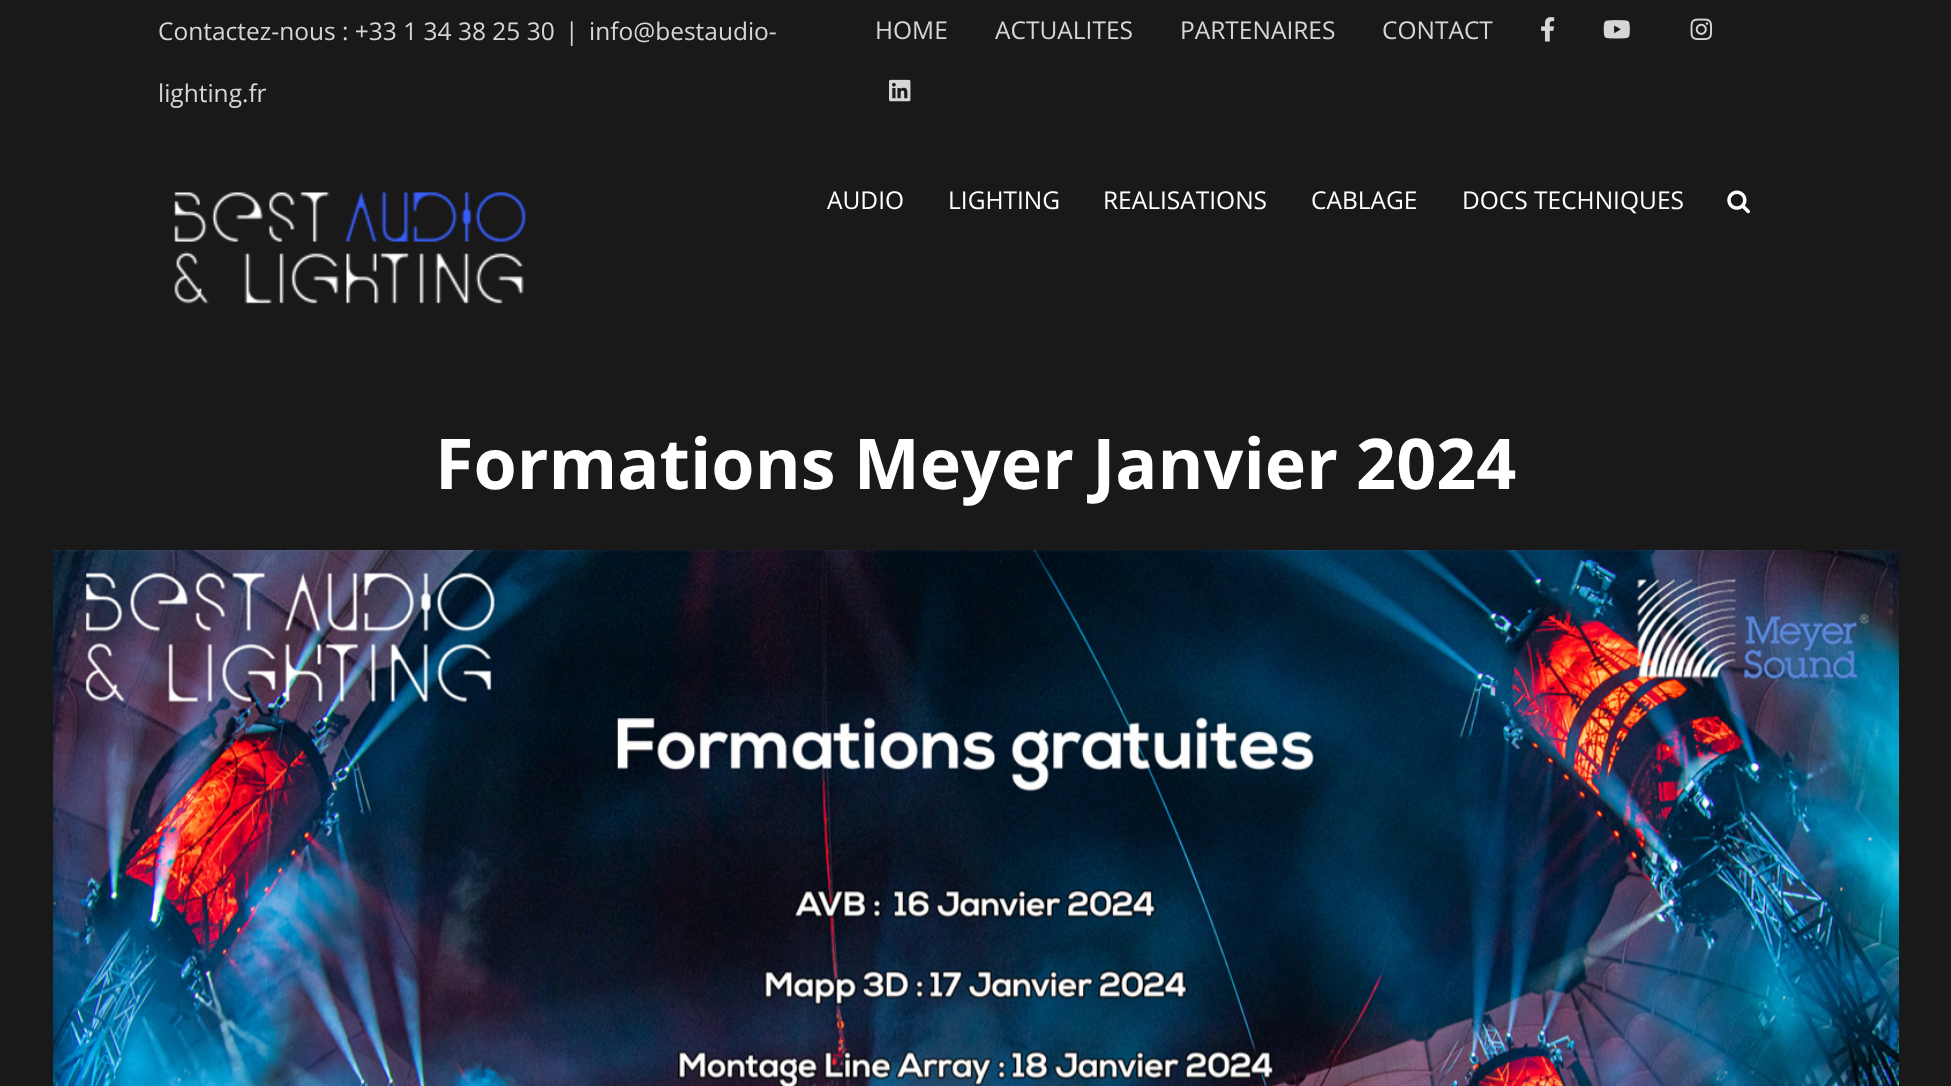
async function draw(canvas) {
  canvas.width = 1951
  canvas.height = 1086
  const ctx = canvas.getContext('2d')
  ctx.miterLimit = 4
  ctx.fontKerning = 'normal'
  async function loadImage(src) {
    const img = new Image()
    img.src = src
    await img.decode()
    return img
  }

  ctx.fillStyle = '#191919'
  ctx.fillRect(0, 0, 1951, 1086)
  ctx.font = '24.5px Open Sans'
  ctx.fillStyle = '#d6d6d6'
  ctx.fillText('Contactez-nous : +33 1 34 38 25 30', 158, 40)
  ctx.fillText('|', 565, 40)
  ctx.fillText('info@bestaudio-', 589, 40)
  ctx.fillText('lighting.fr', 158, 102)
  ctx.fillText('HOME', 875, 39)
  ctx.fillText('ACTUALITES', 995, 39)
  ctx.fillText('PARTENAIRES', 1180, 39)
  ctx.fillText('CONTACT', 1382, 39)
  ctx.drawImage(await loadImage('image0.png'), 1541, 17, 14, 25)
  ctx.drawImage(await loadImage('image1.png'), 1603, 20, 27, 19)
  ctx.drawImage(await loadImage('image2.png'), 1690, 18, 22, 22)
  ctx.drawImage(await loadImage('image3.png'), 889, 79, 22, 23)
  ctx.drawImage(await loadImage('image4.png'), 174, 192, 352, 112)
  ctx.fillStyle = '#fff'
  ctx.fillText('AUDIO', 827, 209)
  ctx.fillText('LIGHTING', 948, 209)
  ctx.fillText('REALISATIONS', 1103, 209)
  ctx.fillText('CABLAGE', 1311, 209)
  ctx.fillText('DOCS TECHNIQUES', 1462, 209)
  ctx.drawImage(await loadImage('image5.png'), 1727, 190, 23, 24)
  ctx.font = 'bold 70px Open Sans'
  ctx.fillText('Formations Meyer Janvier 2024', 435, 489)
  ctx.drawImage(await loadImage('image6.png'), 53, 550, 1846, 536)
}

draw(document.querySelector('canvas'))
